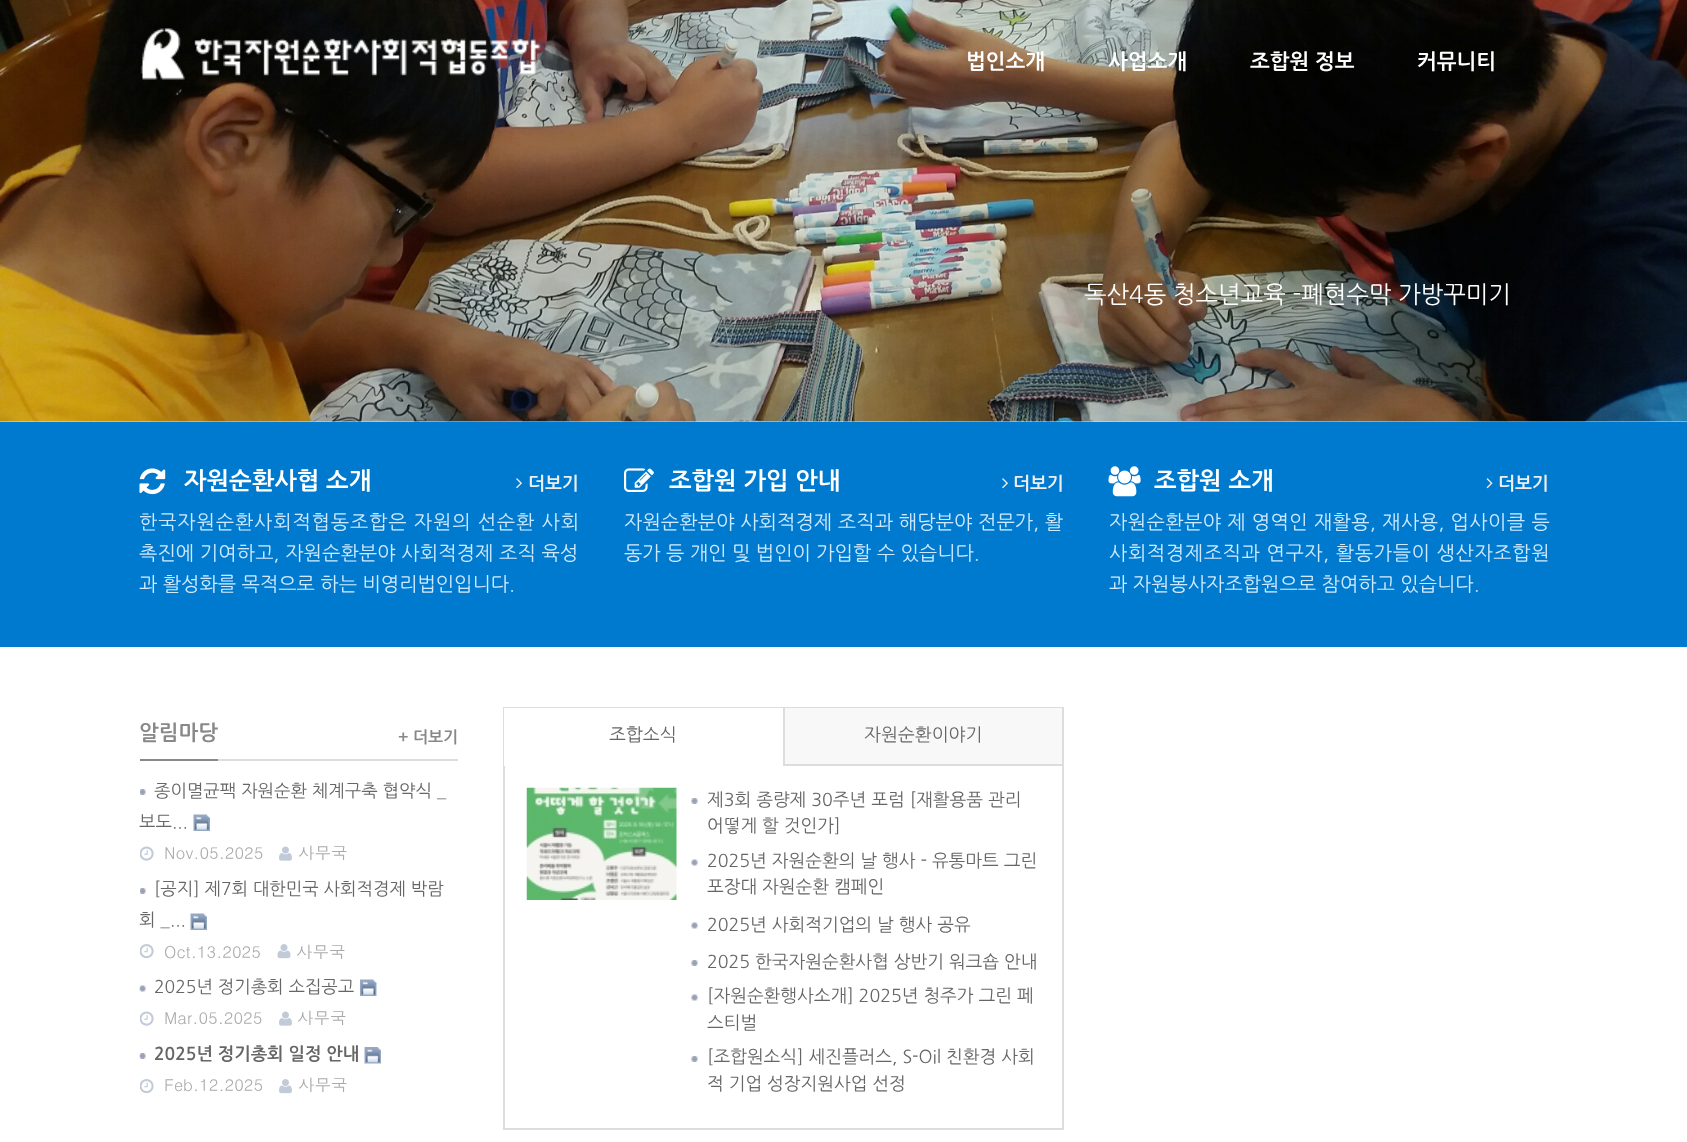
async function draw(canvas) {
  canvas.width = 1687
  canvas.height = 1142
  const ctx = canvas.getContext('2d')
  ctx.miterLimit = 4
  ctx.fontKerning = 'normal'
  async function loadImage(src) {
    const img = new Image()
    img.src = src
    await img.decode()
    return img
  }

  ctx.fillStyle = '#fff'
  ctx.fillRect(0, 0, 1687, 1142)
  ctx.fillStyle = '#e6e6e6'
  ctx.fillRect(0, 421, 1687, 1)
  ctx.drawImage(await loadImage('image1.png'), 0, 0, 1687, 422)
  ctx.drawImage(await loadImage('image0.png'), 140, 28, 401, 52)
  ctx.font = 'bold 21px "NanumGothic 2"'
  ctx.fillStyle = '#fff'
  ctx.fillText('법인소개', 966, 69)
  ctx.fillText('사업소개', 1108, 69)
  ctx.fillText('조합원 정보', 1250, 69)
  ctx.fillText('커뮤니티', 1417, 69)
  ctx.font = '24px NanumGothic'
  ctx.fillText('독산4동 청소년교육 -폐현수막 가방꾸미기', 1084, 303)
  ctx.fillStyle = '#007acf'
  ctx.fillRect(0, 422, 1687, 225)
  ctx.drawImage(await loadImage('image2.png'), 139, 468, 27, 27)
  ctx.font = 'bold 24px NanumGothic'
  ctx.fillStyle = '#fff'
  ctx.fillText('자원순환사협 소개', 184, 488)
  ctx.drawImage(await loadImage('image3.png'), 516, 478, 6, 11)
  ctx.font = 'bold 18px NanumGothic'
  ctx.fillStyle = '#eee'
  ctx.fillText('더보기', 528, 489)
  ctx.letterSpacing = '0.85px'
  ctx.font = '19.5px NanumGothic'
  ctx.fillStyle = '#cfeaff'
  ctx.fillText('한국자원순환사회적협동조합은 자원의 선순환 사회', 139, 529)
  ctx.letterSpacing = '0.1px'
  ctx.fillText('촉진에 기여하고, 자원순환분야 사회적경제 조직 육성', 139, 560)
  ctx.letterSpacing = '0px'
  ctx.fillText('과 활성화를 목적으로 하는 비영리법인입니다.', 139, 591)
  ctx.drawImage(await loadImage('image4.png'), 624, 468, 30, 24)
  ctx.font = 'bold 24px NanumGothic'
  ctx.fillStyle = '#fff'
  ctx.fillText('조합원 가입 안내', 669, 488)
  ctx.drawImage(await loadImage('image3.png'), 1002, 478, 6, 11)
  ctx.font = 'bold 18px NanumGothic'
  ctx.fillStyle = '#eee'
  ctx.fillText('더보기', 1013, 489)
  ctx.letterSpacing = '0.1px'
  ctx.font = '19.5px NanumGothic'
  ctx.fillStyle = '#cfeaff'
  ctx.fillText('자원순환분야 사회적경제 조직과 해당분야 전문가, 활', 624, 529)
  ctx.letterSpacing = '0px'
  ctx.fillText('동가 등 개인 및 법인이 가입할 수 있습니다.', 624, 560)
  ctx.drawImage(await loadImage('image5.png'), 1108, 466, 33, 31)
  ctx.font = 'bold 24px NanumGothic'
  ctx.fillStyle = '#fff'
  ctx.fillText('조합원 소개', 1154, 488)
  ctx.drawImage(await loadImage('image6.png'), 1486, 478, 7, 11)
  ctx.font = 'bold 18px NanumGothic'
  ctx.fillStyle = '#eee'
  ctx.fillText('더보기', 1498, 489)
  ctx.letterSpacing = '0.4px'
  ctx.font = '19.5px NanumGothic'
  ctx.fillStyle = '#cfeaff'
  ctx.fillText('자원순환분야 제 영역인 재활용, 재사용, 업사이클 등', 1109, 529)
  ctx.letterSpacing = '0.6px'
  ctx.fillText('사회적경제조직과 연구자, 활동가들이 생산자조합원', 1109, 560)
  ctx.letterSpacing = '0px'
  ctx.fillText('과 자원봉사자조합원으로 참여하고 있습니다.', 1109, 591)
  ctx.fillStyle = '#ddd'
  ctx.fillRect(218, 759, 240, 2)
  ctx.fillStyle = '#888'
  ctx.fillRect(140, 759, 78, 2)
  ctx.font = 'bold 21px NanumGothic'
  ctx.fillText('알림마당', 139, 739)
  ctx.font = 'bold 16px NanumGothic'
  ctx.fillText('+ 더보기', 398, 742)
  ctx.drawImage(await loadImage('image7.png'), 140, 789, 6, 6)
  ctx.font = '17.5px NanumGothic'
  ctx.fillStyle = '#666'
  ctx.fillText('종이멸균팩 자원순환 체계구축 협약식 _', 154, 797)
  ctx.fillText('보도...', 139, 828)
  ctx.drawImage(await loadImage('image8.png'), 193, 814, 17, 17)
  ctx.drawImage(await loadImage('image9.png'), 140, 846, 14, 15)
  ctx.font = '16.5px Dotum'
  ctx.fillStyle = '#aaa'
  ctx.fillText('Nov.05.2025', 164, 859)
  ctx.drawImage(await loadImage('image10.png'), 279, 846, 13, 15)
  ctx.fillText('사무국', 298, 859)
  ctx.drawImage(await loadImage('image7.png'), 140, 888, 6, 6)
  ctx.font = '17.5px NanumGothic'
  ctx.fillStyle = '#666'
  ctx.fillText('[공지] 제7회 대한민국 사회적경제 박람', 154, 895)
  ctx.fillText('회 _...', 139, 926)
  ctx.drawImage(await loadImage('image8.png'), 190, 913, 17, 17)
  ctx.drawImage(await loadImage('image11.png'), 140, 944, 14, 15)
  ctx.font = '16.5px Dotum'
  ctx.fillStyle = '#aaa'
  ctx.fillText('Oct.13.2025', 164, 958)
  ctx.drawImage(await loadImage('image12.png'), 277, 944, 14, 15)
  ctx.fillText('사무국', 296, 958)
  ctx.drawImage(await loadImage('image13.png'), 139, 985, 7, 7)
  ctx.font = '17.5px NanumGothic'
  ctx.fillStyle = '#666'
  ctx.fillText('2025년 정기총회 소집공고', 154, 993)
  ctx.drawImage(await loadImage('image14.png'), 360, 979, 17, 17)
  ctx.drawImage(await loadImage('image9.png'), 140, 1011, 14, 15)
  ctx.font = '16.5px Dotum'
  ctx.fillStyle = '#aaa'
  ctx.fillText('Mar.05.2025', 164, 1024)
  ctx.drawImage(await loadImage('image10.png'), 279, 1011, 13, 15)
  ctx.fillText('사무국', 297, 1024)
  ctx.drawImage(await loadImage('image15.png'), 139, 1053, 7, 6)
  ctx.font = 'bold 17.5px "NanumGothic 2"'
  ctx.fillStyle = '#666'
  ctx.fillText('2025년 정기총회 일정 안내', 154, 1060)
  ctx.drawImage(await loadImage('image16.png'), 364, 1047, 17, 17)
  ctx.drawImage(await loadImage('image11.png'), 140, 1079, 14, 15)
  ctx.font = '16.5px Dotum'
  ctx.fillStyle = '#aaa'
  ctx.fillText('Feb.12.2025', 164, 1091)
  ctx.drawImage(await loadImage('image17.png'), 279, 1079, 13, 15)
  ctx.fillText('사무국', 298, 1091)
  ctx.strokeStyle = '#ddd'
  ctx.lineWidth = 2
  ctx.strokeRect(504, 708, 559, 421)
  ctx.fillStyle = '#fff'
  ctx.fillRect(504, 708, 279, 56)
  ctx.fillRect(504, 764, 1, 2)
  ctx.font = '18px NanumGothic'
  ctx.fillStyle = '#666'
  ctx.fillText('조합소식', 609, 741)
  ctx.fillStyle = '#f8f8f8'
  ctx.fillRect(785, 708, 277, 56)
  ctx.fillStyle = '#ddd'
  ctx.fillRect(783, 764, 279, 2)
  ctx.fillRect(783, 708, 2, 57)
  ctx.fillStyle = '#666'
  ctx.fillText('자원순환이야기', 864, 741)
  ctx.drawImage(await loadImage('image18.png'), 526, 787, 151, 113)
  ctx.drawImage(await loadImage('image19.png'), 691, 798, 7, 6)
  ctx.font = '17.8px NanumGothic'
  ctx.fillText('제3회 종량제 30주년 포럼 [재활용품 관리', 707, 806)
  ctx.fillText('어떻게 할 것인가]', 707, 832)
  ctx.drawImage(await loadImage('image20.png'), 691, 859, 7, 7)
  ctx.fillText('2025년 자원순환의 날 행사 - 유통마트 그린', 707, 867)
  ctx.fillText('포장대 자원순환 캠페인', 707, 893)
  ctx.drawImage(await loadImage('image20.png'), 691, 922, 7, 7)
  ctx.fillText('2025년 사회적기업의 날 행사 공유', 707, 931)
  ctx.drawImage(await loadImage('image19.png'), 691, 960, 7, 6)
  ctx.fillText('2025 한국자원순환사협 상반기 워크숍 안내', 707, 968)
  ctx.drawImage(await loadImage('image20.png'), 691, 994, 7, 7)
  ctx.fillText('[자원순환행사소개] 2025년 청주가 그린 페', 707, 1002)
  ctx.fillText('스티벌', 707, 1029)
  ctx.drawImage(await loadImage('image19.png'), 691, 1056, 7, 6)
  ctx.fillText('[조합원소식] 세진플러스, S-Oil 친환경 사회', 707, 1063)
  ctx.fillText('적 기업 성장지원사업 선정', 707, 1090)
}

draw(document.querySelector('canvas'))
